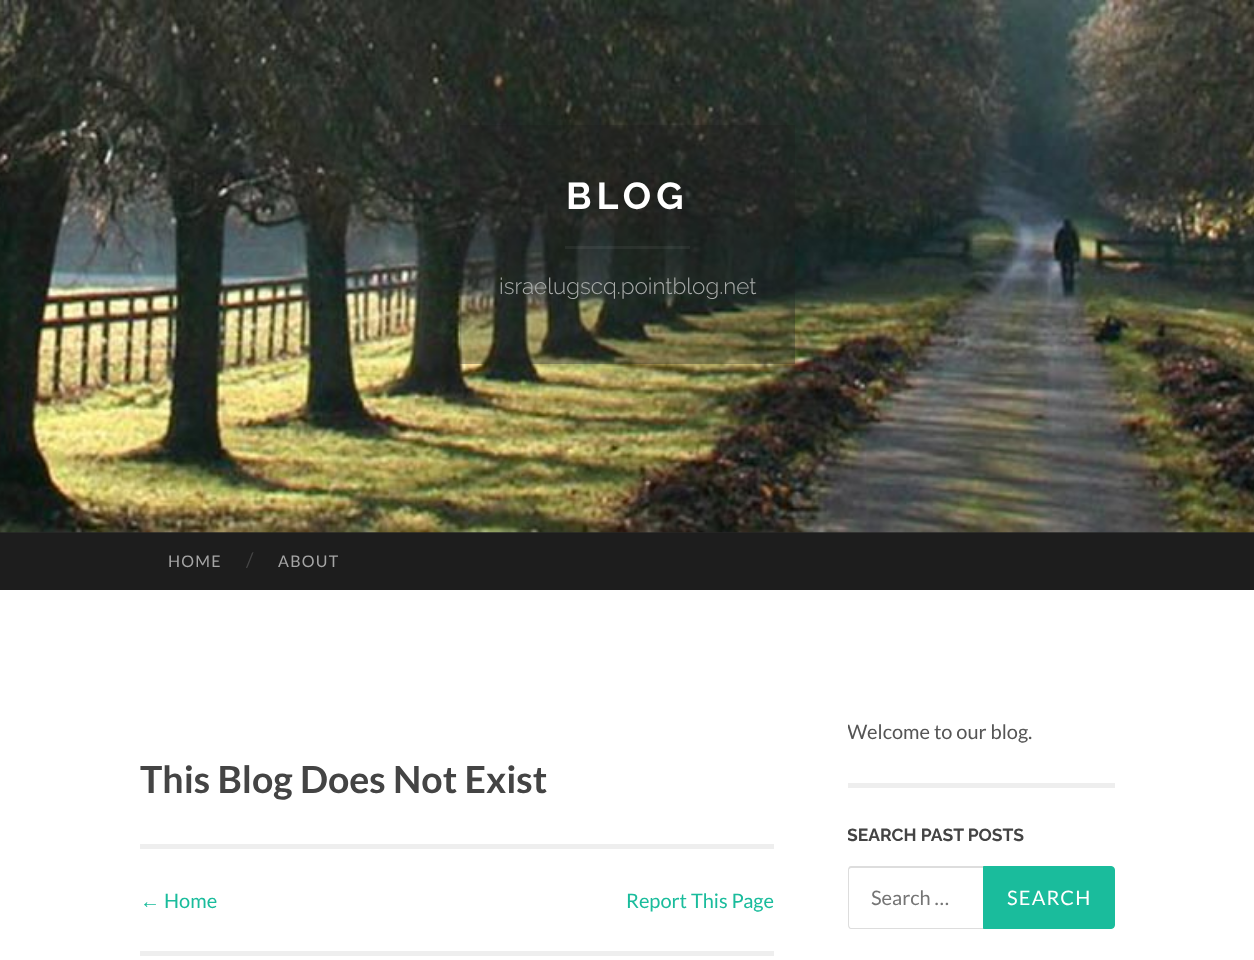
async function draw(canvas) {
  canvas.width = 1254
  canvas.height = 960
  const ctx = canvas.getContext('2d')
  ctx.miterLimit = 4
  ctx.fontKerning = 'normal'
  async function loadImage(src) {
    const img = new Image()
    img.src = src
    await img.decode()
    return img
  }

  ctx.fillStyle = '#fff'
  ctx.fillRect(0, 0, 1254, 960)
  ctx.fillStyle = '#262626'
  ctx.fillRect(0, 532, 1254, 1)
  ctx.drawImage(await loadImage('image0.png'), 0, 0, 1254, 533)
  ctx.fillStyle = '#1d1d1d57'
  ctx.fillRect(460, 125, 335, 239)
  ctx.letterSpacing = '5px'
  ctx.font = 'bold 37.5px Raleway'
  ctx.fillStyle = '#fff'
  ctx.fillText('BLOG', 566, 209)
  ctx.fillStyle = '#ffffff0f'
  ctx.fillRect(565, 246, 125, 3)
  ctx.letterSpacing = '0px'
  ctx.font = '300 22.5px Raleway'
  ctx.fillStyle = '#a9acaa'
  ctx.fillText('israelugscq.pointblog.net', 499, 294)
  ctx.fillStyle = '#1d1d1d'
  ctx.fillRect(0, 533, 1254, 57)
  ctx.letterSpacing = '1.25px'
  ctx.font = '16px Lato'
  ctx.fillStyle = '#a5a5a5'
  ctx.fillText('HOME', 168, 567)
  ctx.letterSpacing = '0px'
  ctx.font = '20px Lato'
  ctx.fillStyle = '#444'
  ctx.fillText('/', 246, 567)
  ctx.letterSpacing = '1.25px'
  ctx.font = '16px Lato'
  ctx.fillStyle = '#a5a5a5'
  ctx.fillText('ABOUT', 278, 567)
  ctx.letterSpacing = '0px'
  ctx.font = 'bold 37.5px Lato'
  ctx.fillStyle = '#444'
  ctx.fillText('This Blog Does Not Exist', 140, 793)
  ctx.fillStyle = '#eee'
  ctx.fillRect(140, 844, 634, 5)
  ctx.fillRect(140, 951, 634, 5)
  ctx.font = '20px Liberation Sans'
  ctx.fillStyle = '#1abc9c'
  ctx.fillText('←', 140, 908)
  ctx.font = '20px Lato'
  ctx.fillText('Home', 164, 908)
  ctx.fillText('Report This Page', 626, 908)
  ctx.fillStyle = '#eee'
  ctx.fillRect(848, 783, 267, 5)
  ctx.save()
  ctx.beginPath()
  ctx.rect(848, 715, 267, 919)
  ctx.clip()
  ctx.fillStyle = '#555'
  ctx.fillText('Welcome to our blog.', 847, 739)
  ctx.font = 'bold 17.5px Raleway'
  ctx.fillStyle = '#444'
  ctx.fillText('SEARCH PAST POSTS', 847, 841)
  ctx.restore()
  ctx.fillStyle = '#ddd'
  ctx.beginPath()
  ctx.moveTo(851, 866)
  ctx.lineTo(1112, 866)
  ctx.lineTo(1112, 929)
  ctx.lineTo(851, 929)
  ctx.bezierCurveTo(849, 929, 848, 927, 848, 925)
  ctx.lineTo(848, 870)
  ctx.bezierCurveTo(848, 868, 849, 866, 851, 866)
  ctx.closePath()
  ctx.moveTo(851, 868)
  ctx.lineTo(1112, 868)
  ctx.lineTo(1112, 928)
  ctx.lineTo(851, 928)
  ctx.bezierCurveTo(850, 928, 849, 926, 849, 925)
  ctx.lineTo(849, 870)
  ctx.bezierCurveTo(849, 869, 850, 868, 851, 868)
  ctx.closePath()
  ctx.fill('evenodd')
  ctx.fillStyle = '#757575'
  ctx.fillText('Search …', 871, 905)
  ctx.fillStyle = '#1abc9c'
  ctx.beginPath()
  ctx.roundRect(983.5, 866.5, 131, 62, [0, 3.5, 3.5, 0])
  ctx.fill()
  ctx.strokeStyle = '#1abc9c'
  ctx.stroke()
  ctx.letterSpacing = '1.25px'
  ctx.fillStyle = '#fff'
  ctx.fillText('SEARCH', 1007, 905)
}

draw(document.querySelector('canvas'))
